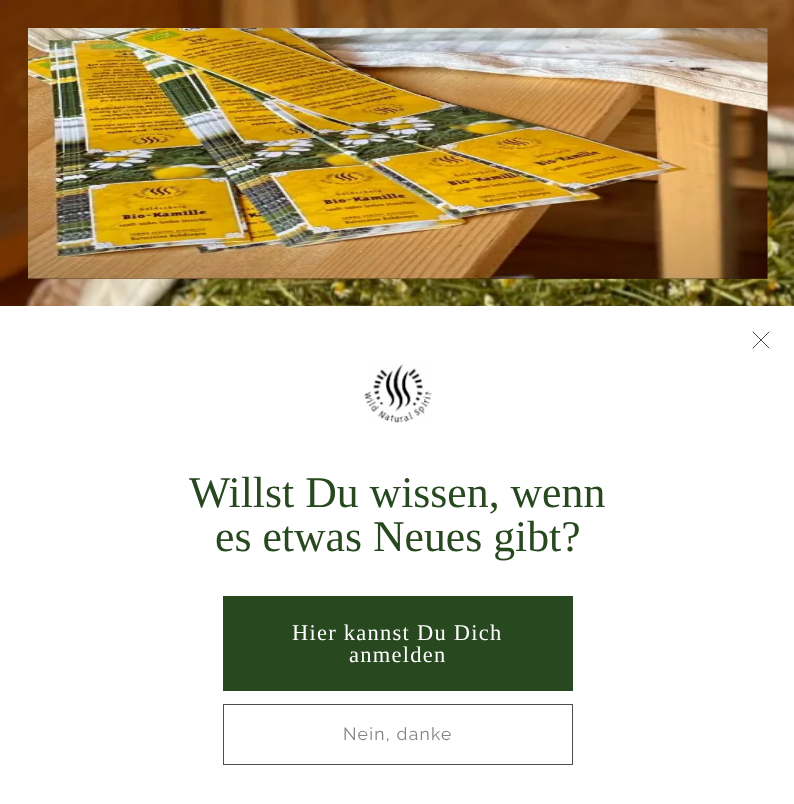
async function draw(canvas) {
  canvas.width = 794
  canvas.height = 804
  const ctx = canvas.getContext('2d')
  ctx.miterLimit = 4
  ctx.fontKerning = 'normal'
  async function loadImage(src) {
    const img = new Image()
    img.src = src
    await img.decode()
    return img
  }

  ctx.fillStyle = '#fff'
  ctx.fillRect(0, 0, 794, 804)
  ctx.drawImage(await loadImage('image0.png'), 0, 0, 794, 306)
  ctx.drawImage(await loadImage('image1.png'), 28, 28, 740, 251)
  ctx.beginPath()
  ctx.moveTo(753, 332)
  ctx.lineTo(769, 348)
  ctx.strokeStyle = '#333'
  ctx.lineWidth = 0.9
  ctx.lineCap = 'round'
  ctx.stroke()
  ctx.beginPath()
  ctx.moveTo(769, 332)
  ctx.lineTo(753, 348)
  ctx.strokeStyle = '#000000cc'
  ctx.stroke()
  ctx.drawImage(await loadImage('image2.png'), 364, 364, 68, 59)
  ctx.font = '43.75px Liberation Serif'
  ctx.fillStyle = '#28481f'
  ctx.fillText('Willst Du wissen, wenn', 189, 507)
  ctx.fillText('es etwas Neues gibt?', 215, 551)
  ctx.fillRect(223, 596, 350, 95)
  ctx.letterSpacing = '1.25px'
  ctx.font = '22.5px Liberation Serif'
  ctx.fillStyle = '#fff'
  ctx.fillText('Hier kannst Du Dich', 292, 640)
  ctx.fillText('anmelden', 349, 662)
  ctx.strokeStyle = '#4d4d4d'
  ctx.lineWidth = 1
  ctx.strokeRect(223.5, 704.5, 349, 60)
  ctx.font = '100 17.5px Raleway'
  ctx.fillStyle = '#828282'
  ctx.fillText('Nein, danke', 343, 740)
}

draw(document.querySelector('canvas'))
